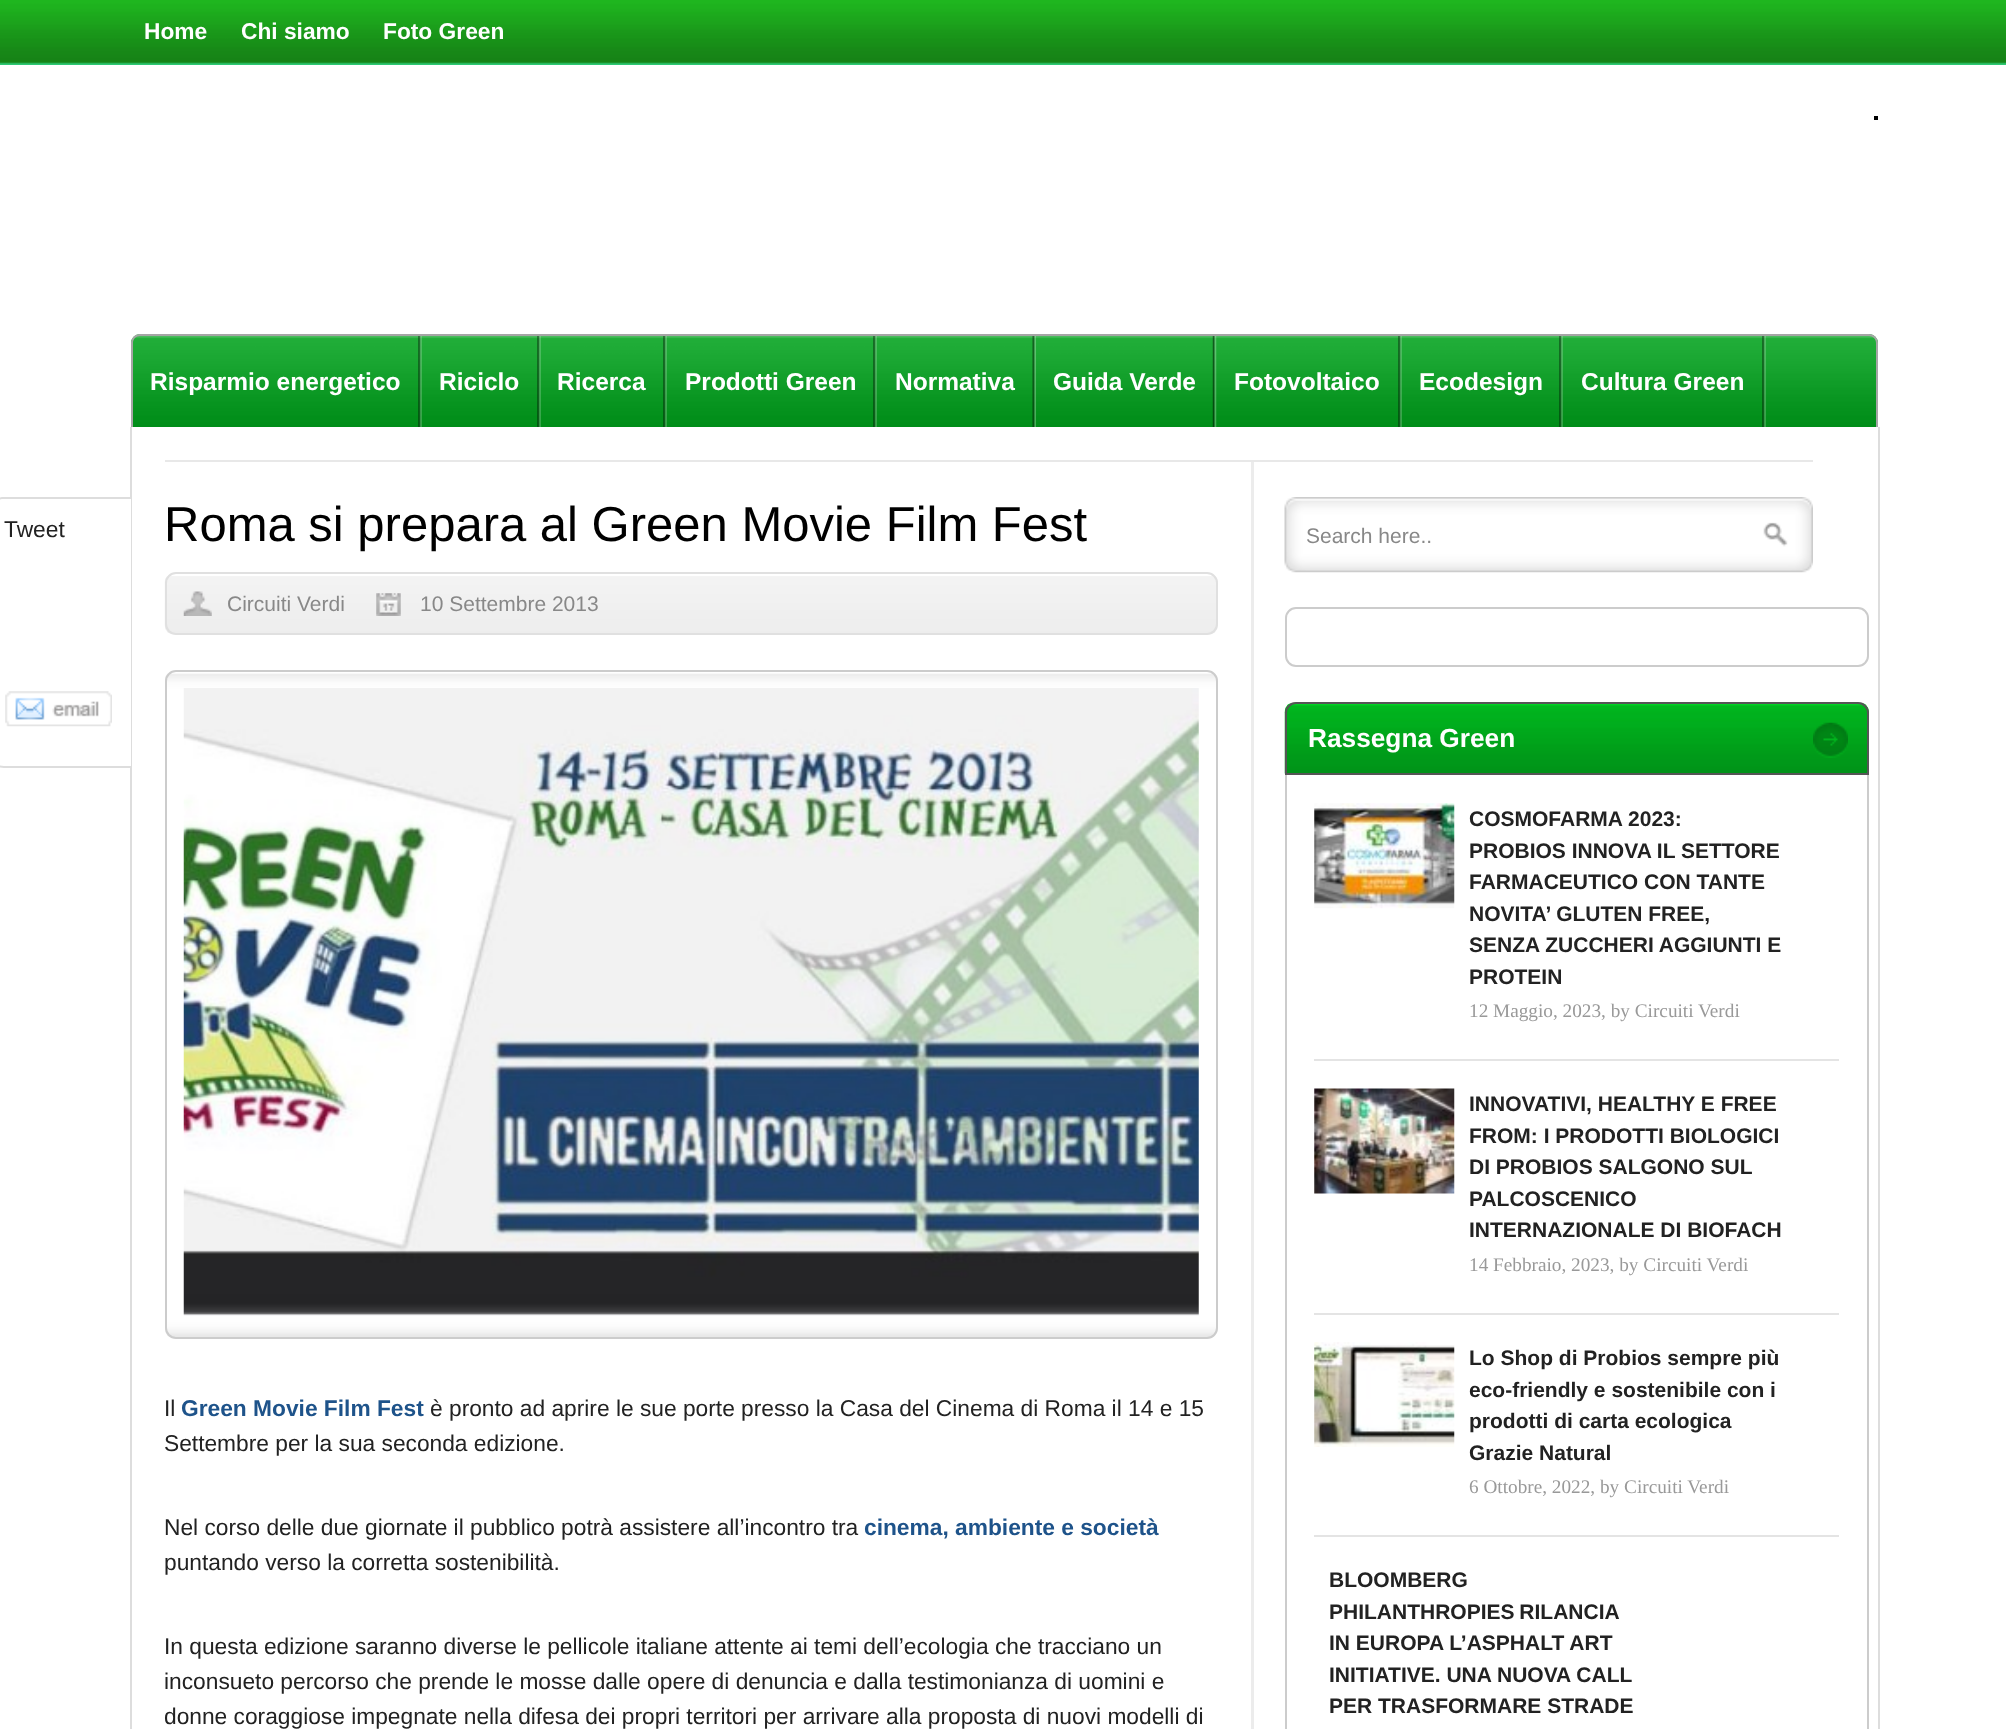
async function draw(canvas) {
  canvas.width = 2006
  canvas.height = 1729
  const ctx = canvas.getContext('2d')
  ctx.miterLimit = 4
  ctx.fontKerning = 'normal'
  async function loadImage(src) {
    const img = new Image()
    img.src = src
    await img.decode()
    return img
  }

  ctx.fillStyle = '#fff'
  ctx.fillRect(0, 0, 2006, 1729)
  ctx.fillStyle = '#2dc873'
  ctx.fillRect(0, 62, 2006, 3)
  ctx.drawImage(await loadImage('image0.png'), 0, 0, 2006, 64)
  ctx.font = 'bold 22.75px Liberation Sans'
  ctx.fillStyle = '#fff'
  ctx.fillText('Home', 144, 39)
  ctx.fillText('Chi siamo', 241, 39)
  ctx.fillText('Foto Green', 383, 39)
  ctx.fillStyle = '#000'
  ctx.fillRect(1874, 116, 4, 4)
  ctx.fillStyle = '#00b11e'
  ctx.beginPath()
  ctx.roundRect(131, 334, 1747, 93, [9, 9, 0, 0])
  ctx.fill()
  ctx.drawImage(await loadImage('image1.png'), 131, 336, 1747, 91)
  ctx.fillStyle = '#a5a5a5'
  ctx.beginPath()
  ctx.moveTo(140, 334)
  ctx.lineTo(1869, 334)
  ctx.bezierCurveTo(1874, 334, 1878, 338, 1878, 343)
  ctx.lineTo(1878, 427)
  ctx.lineTo(131, 427)
  ctx.lineTo(131, 343)
  ctx.bezierCurveTo(131, 338, 135, 334, 140, 334)
  ctx.closePath()
  ctx.moveTo(140, 336)
  ctx.lineTo(1869, 336)
  ctx.bezierCurveTo(1873, 336, 1876, 339, 1876, 343)
  ctx.lineTo(1876, 427)
  ctx.lineTo(133, 427)
  ctx.lineTo(133, 343)
  ctx.bezierCurveTo(133, 339, 136, 336, 140, 336)
  ctx.closePath()
  ctx.fill('evenodd')
  ctx.drawImage(await loadImage('image2.png'), 418, 336, 4, 91)
  ctx.font = 'bold 24.5px Liberation Sans'
  ctx.fillStyle = '#fff'
  ctx.fillText('Risparmio energetico', 150, 390)
  ctx.drawImage(await loadImage('image2.png'), 537, 336, 4, 91)
  ctx.fillText('Riciclo', 439, 390)
  ctx.drawImage(await loadImage('image3.png'), 663, 336, 4, 91)
  ctx.fillText('Ricerca', 557, 390)
  ctx.drawImage(await loadImage('image2.png'), 873, 336, 4, 91)
  ctx.fillText('Prodotti Green', 685, 390)
  ctx.drawImage(await loadImage('image4.png'), 1032, 336, 4, 91)
  ctx.fillText('Normativa', 895, 390)
  ctx.drawImage(await loadImage('image5.png'), 1212, 336, 5, 91)
  ctx.fillText('Guida Verde', 1053, 390)
  ctx.drawImage(await loadImage('image2.png'), 1398, 336, 4, 91)
  ctx.fillText('Fotovoltaico', 1234, 390)
  ctx.drawImage(await loadImage('image2.png'), 1559, 336, 4, 91)
  ctx.fillText('Ecodesign', 1419, 390)
  ctx.drawImage(await loadImage('image2.png'), 1762, 336, 4, 91)
  ctx.fillText('Cultura Green', 1581, 390)
  ctx.fillStyle = '#ddd'
  ctx.fillRect(1878, 427, 2, 1302)
  ctx.fillRect(130, 427, 2, 1302)
  ctx.fillStyle = '#ececec'
  ctx.fillRect(1251, 460, 3, 1269)
  ctx.fillStyle = '#e8e8e8'
  ctx.fillRect(165, 460, 1648, 2)
  ctx.fillStyle = '#fff'
  ctx.beginPath()
  ctx.moveTo(4, 497)
  ctx.lineTo(131, 497)
  ctx.lineTo(131, 768)
  ctx.lineTo(4, 768)
  ctx.bezierCurveTo(-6, 768, -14, 760, -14, 750)
  ctx.lineTo(-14, 515)
  ctx.bezierCurveTo(-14, 505, -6, 497, 4, 497)
  ctx.closePath()
  ctx.fill()
  ctx.fillStyle = '#ddd'
  ctx.beginPath()
  ctx.moveTo(4, 497)
  ctx.lineTo(131, 497)
  ctx.lineTo(131, 768)
  ctx.lineTo(4, 768)
  ctx.bezierCurveTo(-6, 768, -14, 760, -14, 751)
  ctx.lineTo(-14, 514)
  ctx.bezierCurveTo(-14, 505, -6, 497, 4, 497)
  ctx.closePath()
  ctx.moveTo(4, 499)
  ctx.lineTo(131, 499)
  ctx.lineTo(131, 766)
  ctx.lineTo(4, 766)
  ctx.bezierCurveTo(-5, 766, -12, 759, -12, 751)
  ctx.lineTo(-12, 514)
  ctx.bezierCurveTo(-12, 506, -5, 499, 4, 499)
  ctx.closePath()
  ctx.fill('evenodd')
  ctx.font = '22.75px Liberation Sans'
  ctx.fillStyle = '#222'
  ctx.fillText('Tweet', 4, 537)
  ctx.drawImage(await loadImage('image6.png'), 5, 691, 107, 36)
  ctx.font = '49px Liberation Sans'
  ctx.fillStyle = '#000'
  ctx.fillText('Roma si prepara al Green Movie Film Fest', 164, 541)
  ctx.drawImage(await loadImage('image7.png'), 164, 576, 1054, 58)
  ctx.beginPath()
  ctx.roundRect(166, 573, 1051, 61, 10)
  ctx.strokeStyle = '#e0e0e0'
  ctx.lineWidth = 2
  ctx.stroke()
  ctx.drawImage(await loadImage('image8.png'), 183, 591, 29, 25)
  ctx.font = '21px Liberation Sans'
  ctx.fillStyle = '#888'
  ctx.fillText('Circuiti Verdi', 227, 611)
  ctx.drawImage(await loadImage('image9.png'), 376, 593, 25, 23)
  ctx.fillText('10 Settembre 2013', 420, 611)
  ctx.drawImage(await loadImage('image10.png'), 165, 673, 1053, 664)
  ctx.beginPath()
  ctx.roundRect(166, 671, 1051, 667, 10)
  ctx.strokeStyle = '#ccc'
  ctx.stroke()
  ctx.drawImage(await loadImage('image11.png'), 183, 688, 1016, 628)
  ctx.font = '22.75px Liberation Sans'
  ctx.fillStyle = '#222'
  ctx.fillText('Il', 164, 1416)
  ctx.font = 'bold 22.75px Liberation Sans'
  ctx.fillStyle = '#1e538a'
  ctx.fillText('Green Movie Film Fest', 181, 1416)
  ctx.font = '22.75px Liberation Sans'
  ctx.fillStyle = '#222'
  ctx.fillText('è pronto ad aprire le sue porte presso la Casa del Cinema di Roma il 14 e 15', 430, 1416)
  ctx.fillText('Settembre per la sua seconda edizione.', 164, 1451)
  ctx.fillText('Nel corso delle due giornate il pubblico potrà assistere all’incontro tra', 164, 1535)
  ctx.font = 'bold 22.75px Liberation Sans'
  ctx.fillStyle = '#1e538a'
  ctx.fillText('cinema, ambiente e società', 864, 1535)
  ctx.font = '22.75px Liberation Sans'
  ctx.fillStyle = '#222'
  ctx.fillText('puntando verso la corretta sostenibilità.', 164, 1570)
  ctx.fillText('In questa edizione saranno diverse le pellicole italiane attente ai temi dell’ecologia che tracciano un', 164, 1654)
  ctx.fillText('inconsueto percorso che prende le mosse dalle opere di denuncia e dalla testimonianza di uomini e', 164, 1689)
  ctx.fillText('donne coraggiose impegnate nella difesa dei propri territori per arrivare alla proposta di nuovi modelli di', 164, 1724)
  ctx.drawImage(await loadImage('image12.png'), 1284, 497, 529, 76)
  ctx.font = '21px Liberation Sans'
  ctx.fillStyle = '#888'
  ctx.fillText('Search here..', 1306, 543)
  ctx.beginPath()
  ctx.roundRect(1286, 608, 582, 58, 10)
  ctx.stroke()
  ctx.beginPath()
  ctx.roundRect(1286, 703, 582, 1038, 10)
  ctx.stroke()
  ctx.drawImage(await loadImage('image13.png'), 1284, 703, 585, 71)
  ctx.beginPath()
  ctx.roundRect(1286, 703, 582, 71, [10, 10, 0, 0])
  ctx.strokeStyle = '#555'
  ctx.stroke()
  ctx.font = 'bold 26.25px Liberation Sans'
  ctx.fillStyle = '#fff'
  ctx.fillText('Rassegna Green', 1308, 747)
  ctx.drawImage(await loadImage('image14.png'), 1813, 722, 35, 36)
  ctx.fillStyle = '#e4e4e4'
  ctx.fillRect(1314, 1059, 525, 2)
  ctx.drawImage(await loadImage('image15.png'), 1314, 803, 141, 106)
  ctx.font = 'bold 21px Liberation Sans'
  ctx.fillStyle = '#222'
  ctx.fillText('COSMOFARMA 2023:', 1469, 826)
  ctx.fillText('PROBIOS INNOVA IL SETTORE', 1469, 858)
  ctx.fillText('FARMACEUTICO CON TANTE', 1469, 889)
  ctx.fillText('NOVITA’ GLUTEN FREE,', 1469, 921)
  ctx.fillText('SENZA ZUCCHERI AGGIUNTI E', 1469, 952)
  ctx.fillText('PROTEIN', 1469, 984)
  ctx.font = '19.25px Liberation Serif'
  ctx.fillStyle = '#999'
  ctx.fillText('12 Maggio, 2023, by Circuiti Verdi', 1469, 1017)
  ctx.fillStyle = '#e4e4e4'
  ctx.fillRect(1314, 1313, 525, 2)
  ctx.drawImage(await loadImage('image16.png'), 1314, 1088, 141, 106)
  ctx.font = 'bold 21px Liberation Sans'
  ctx.fillStyle = '#222'
  ctx.fillText('INNOVATIVI, HEALTHY E FREE', 1469, 1111)
  ctx.fillText('FROM: I PRODOTTI BIOLOGICI', 1469, 1143)
  ctx.fillText('DI PROBIOS SALGONO SUL', 1469, 1174)
  ctx.fillText('PALCOSCENICO', 1469, 1206)
  ctx.fillText('INTERNAZIONALE DI BIOFACH', 1469, 1237)
  ctx.font = '19.25px Liberation Serif'
  ctx.fillStyle = '#999'
  ctx.fillText('14 Febbraio, 2023, by Circuiti Verdi', 1469, 1271)
  ctx.fillStyle = '#e4e4e4'
  ctx.fillRect(1314, 1535, 525, 2)
  ctx.drawImage(await loadImage('image17.png'), 1314, 1342, 141, 105)
  ctx.font = 'bold 21px Liberation Sans'
  ctx.fillStyle = '#222'
  ctx.fillText('Lo Shop di Probios sempre più', 1469, 1365)
  ctx.fillText('eco-friendly e sostenibile con i', 1469, 1397)
  ctx.fillText('prodotti di carta ecologica', 1469, 1428)
  ctx.fillText('Grazie Natural', 1469, 1460)
  ctx.font = '19.25px Liberation Serif'
  ctx.fillStyle = '#999'
  ctx.fillText('6 Ottobre, 2022, by Circuiti Verdi', 1469, 1493)
  ctx.font = 'bold 21px Liberation Sans'
  ctx.fillStyle = '#222'
  ctx.fillText('BLOOMBERG', 1329, 1587)
  ctx.wordSpacing = '-1px'
  ctx.fillText('PHILANTHROPIES RILANCIA', 1329, 1619)
  ctx.wordSpacing = '0px'
  ctx.fillText('IN EUROPA L’ASPHALT ART', 1329, 1650)
  ctx.fillText('INITIATIVE. UNA NUOVA CALL', 1329, 1682)
  ctx.fillText('PER TRASFORMARE STRADE', 1329, 1713)
}

draw(document.querySelector('canvas'))
